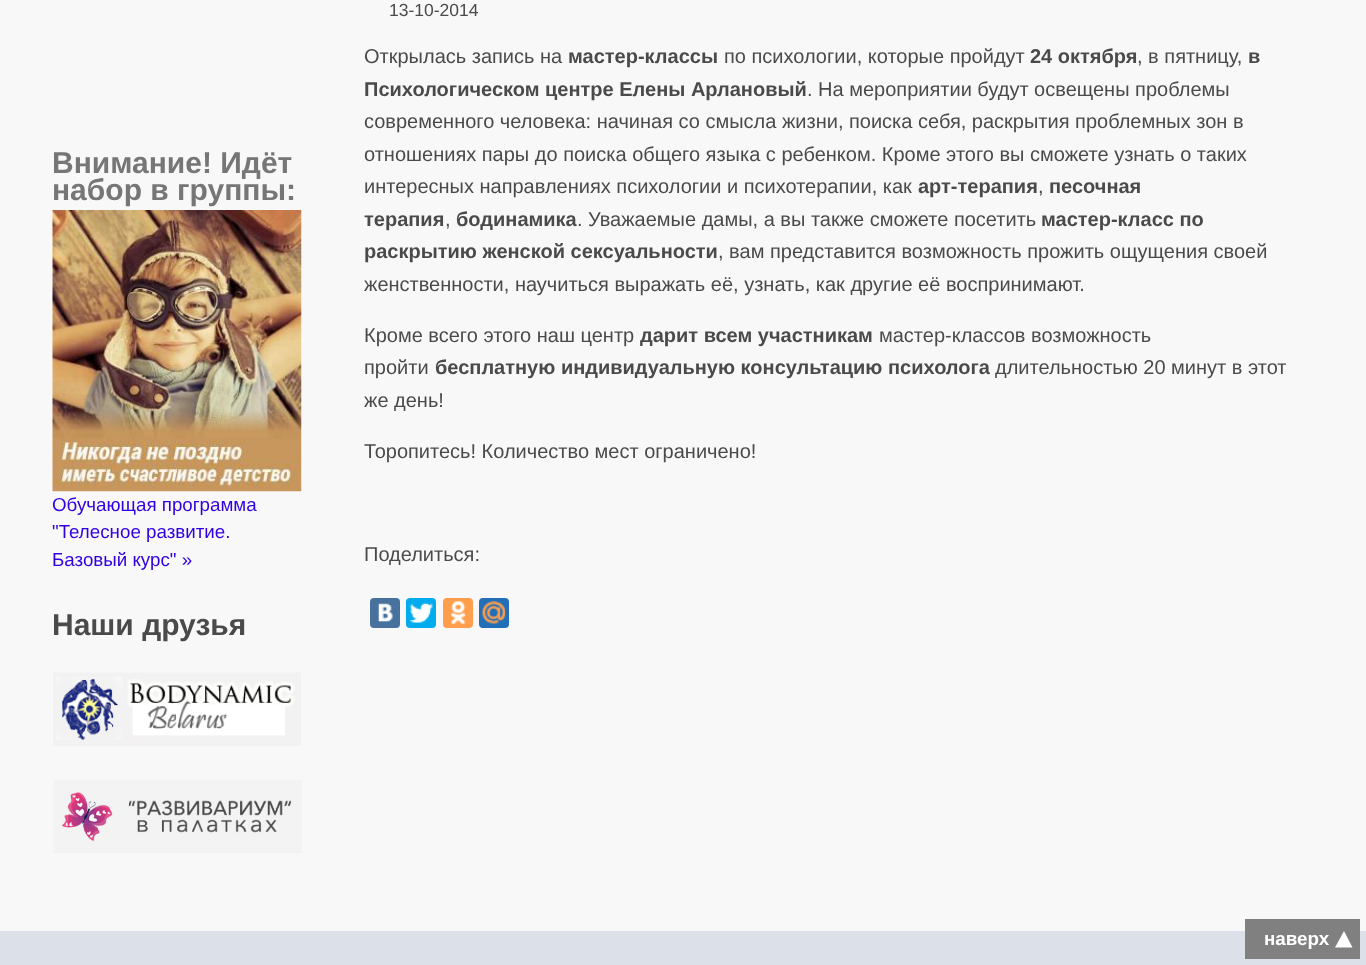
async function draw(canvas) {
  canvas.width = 1366
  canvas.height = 965
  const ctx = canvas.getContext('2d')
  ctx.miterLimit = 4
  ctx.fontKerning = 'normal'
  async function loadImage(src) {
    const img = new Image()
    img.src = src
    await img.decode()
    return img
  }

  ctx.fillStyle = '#f8f8f8'
  ctx.fillRect(0, 0, 1366, 965)
  ctx.font = 'bold 30px Liberation Sans'
  ctx.fillStyle = '#767676'
  ctx.fillText('Внимание! Идёт', 52, 173)
  ctx.fillText('набор в группы:', 52, 200)
  ctx.drawImage(await loadImage('image0.png'), 52, 210, 250, 282)
  ctx.font = '18.75px Liberation Sans'
  ctx.fillStyle = '#3100e2'
  ctx.fillText('Обучающая программа', 52, 511)
  ctx.fillText('"Телесное развитие.', 52, 538)
  ctx.fillText('Базовый курс" »', 52, 566)
  ctx.font = 'bold 30px Liberation Sans'
  ctx.fillStyle = '#4a4a4a'
  ctx.fillText('Наши друзья', 52, 635)
  ctx.drawImage(await loadImage('image1.png'), 53, 672, 248, 74)
  ctx.drawImage(await loadImage('image2.png'), 53, 780, 249, 73)
  ctx.font = '17.5px Liberation Sans'
  ctx.fillText('13-10-2014', 389, 16)
  ctx.font = '20px Liberation Sans'
  ctx.fillText('Открылась запись на', 364, 63)
  ctx.font = 'bold 20px Liberation Sans'
  ctx.fillText('мастер-классы', 568, 63)
  ctx.font = '20px Liberation Sans'
  ctx.fillText('по психологии, которые пройдут', 724, 63)
  ctx.font = 'bold 20px Liberation Sans'
  ctx.fillText('24 октября', 1030, 63)
  ctx.font = '20px Liberation Sans'
  ctx.fillText(', в пятницу,', 1137, 63)
  ctx.font = 'bold 20px Liberation Sans'
  ctx.fillText('в', 1248, 63)
  ctx.fillText('Психологическом центре Елены Арлановый', 364, 96)
  ctx.font = '20px Liberation Sans'
  ctx.fillText('. На мероприятии будут освещены проблемы', 807, 96)
  ctx.fillText('современного человека: начиная со смысла жизни, поиска себя, раскрытия проблемных зон в', 364, 128)
  ctx.fillText('отношениях пары до поиска общего языка с ребенком. Кроме этого вы сможете узнать о таких', 364, 161)
  ctx.fillText('интересных направлениях психологии и психотерапии, как', 364, 193)
  ctx.font = 'bold 20px Liberation Sans'
  ctx.fillText('арт-терапия', 918, 193)
  ctx.font = '20px Liberation Sans'
  ctx.fillText(',', 1038, 193)
  ctx.font = 'bold 20px Liberation Sans'
  ctx.fillText('песочная', 1049, 193)
  ctx.fillText('терапия', 364, 226)
  ctx.font = '20px Liberation Sans'
  ctx.fillText(',', 445, 226)
  ctx.font = 'bold 20px Liberation Sans'
  ctx.fillText('бодинамика', 456, 226)
  ctx.font = '20px Liberation Sans'
  ctx.fillText('. Уважаемые дамы, а вы также сможете посетить', 577, 226)
  ctx.font = 'bold 20px Liberation Sans'
  ctx.fillText('мастер-класс по', 1041, 226)
  ctx.fillText('раскрытию женской сексуальности', 364, 258)
  ctx.font = '20px Liberation Sans'
  ctx.fillText(', вам представится возможность прожить ощущения своей', 718, 258)
  ctx.fillText('женственности, научиться выражать её, узнать, как другие её воспринимают.', 364, 291)
  ctx.fillText('Кроме всего этого наш центр', 364, 342)
  ctx.font = 'bold 20px Liberation Sans'
  ctx.fillText('дарит всем участникам', 640, 342)
  ctx.font = '20px Liberation Sans'
  ctx.fillText('мастер-классов возможность', 879, 342)
  ctx.fillText('пройти', 364, 374)
  ctx.font = 'bold 20px Liberation Sans'
  ctx.fillText('бесплатную индивидуальную консультацию психолога', 435, 374)
  ctx.font = '20px Liberation Sans'
  ctx.fillText('длительностью 20 минут в этот', 995, 374)
  ctx.fillText('же день!', 364, 407)
  ctx.fillText('Торопитесь! Количество мест ограничено!', 364, 458)
  ctx.fillText('Поделиться:', 364, 561)
  ctx.fillStyle = '#48729e'
  ctx.beginPath()
  ctx.roundRect(370, 598, 30, 30, 4)
  ctx.fill()
  ctx.drawImage(await loadImage('image3.png'), 378, 603, 15, 19)
  ctx.fillStyle = '#00aced'
  ctx.beginPath()
  ctx.roundRect(406, 598, 30, 30, 4)
  ctx.fill()
  ctx.drawImage(await loadImage('image4.png'), 409, 603, 24, 20)
  ctx.fillStyle = '#ff9f4d'
  ctx.beginPath()
  ctx.roundRect(443, 598, 30, 30, 4)
  ctx.fill()
  ctx.drawImage(await loadImage('image5.png'), 451, 601, 15, 23)
  ctx.fillStyle = '#226eb7'
  ctx.beginPath()
  ctx.roundRect(479, 598, 30, 30, 4)
  ctx.fill()
  ctx.drawImage(await loadImage('image6.png'), 482, 601, 24, 23)
  ctx.fillStyle = '#dce0e9'
  ctx.fillRect(0, 931, 1366, 34)
  ctx.fillStyle = '#808080'
  ctx.fillRect(1245, 919, 115, 40)
  ctx.font = 'bold 18.75px Liberation Sans'
  ctx.fillStyle = '#fff'
  ctx.fillText('наверх', 1264, 945)
  ctx.beginPath()
  ctx.moveTo(1352.5, 947.5)
  ctx.lineTo(1335, 947.5)
  ctx.lineTo(1344, 931)
  ctx.closePath()
  ctx.fill()
}

draw(document.querySelector('canvas'))
